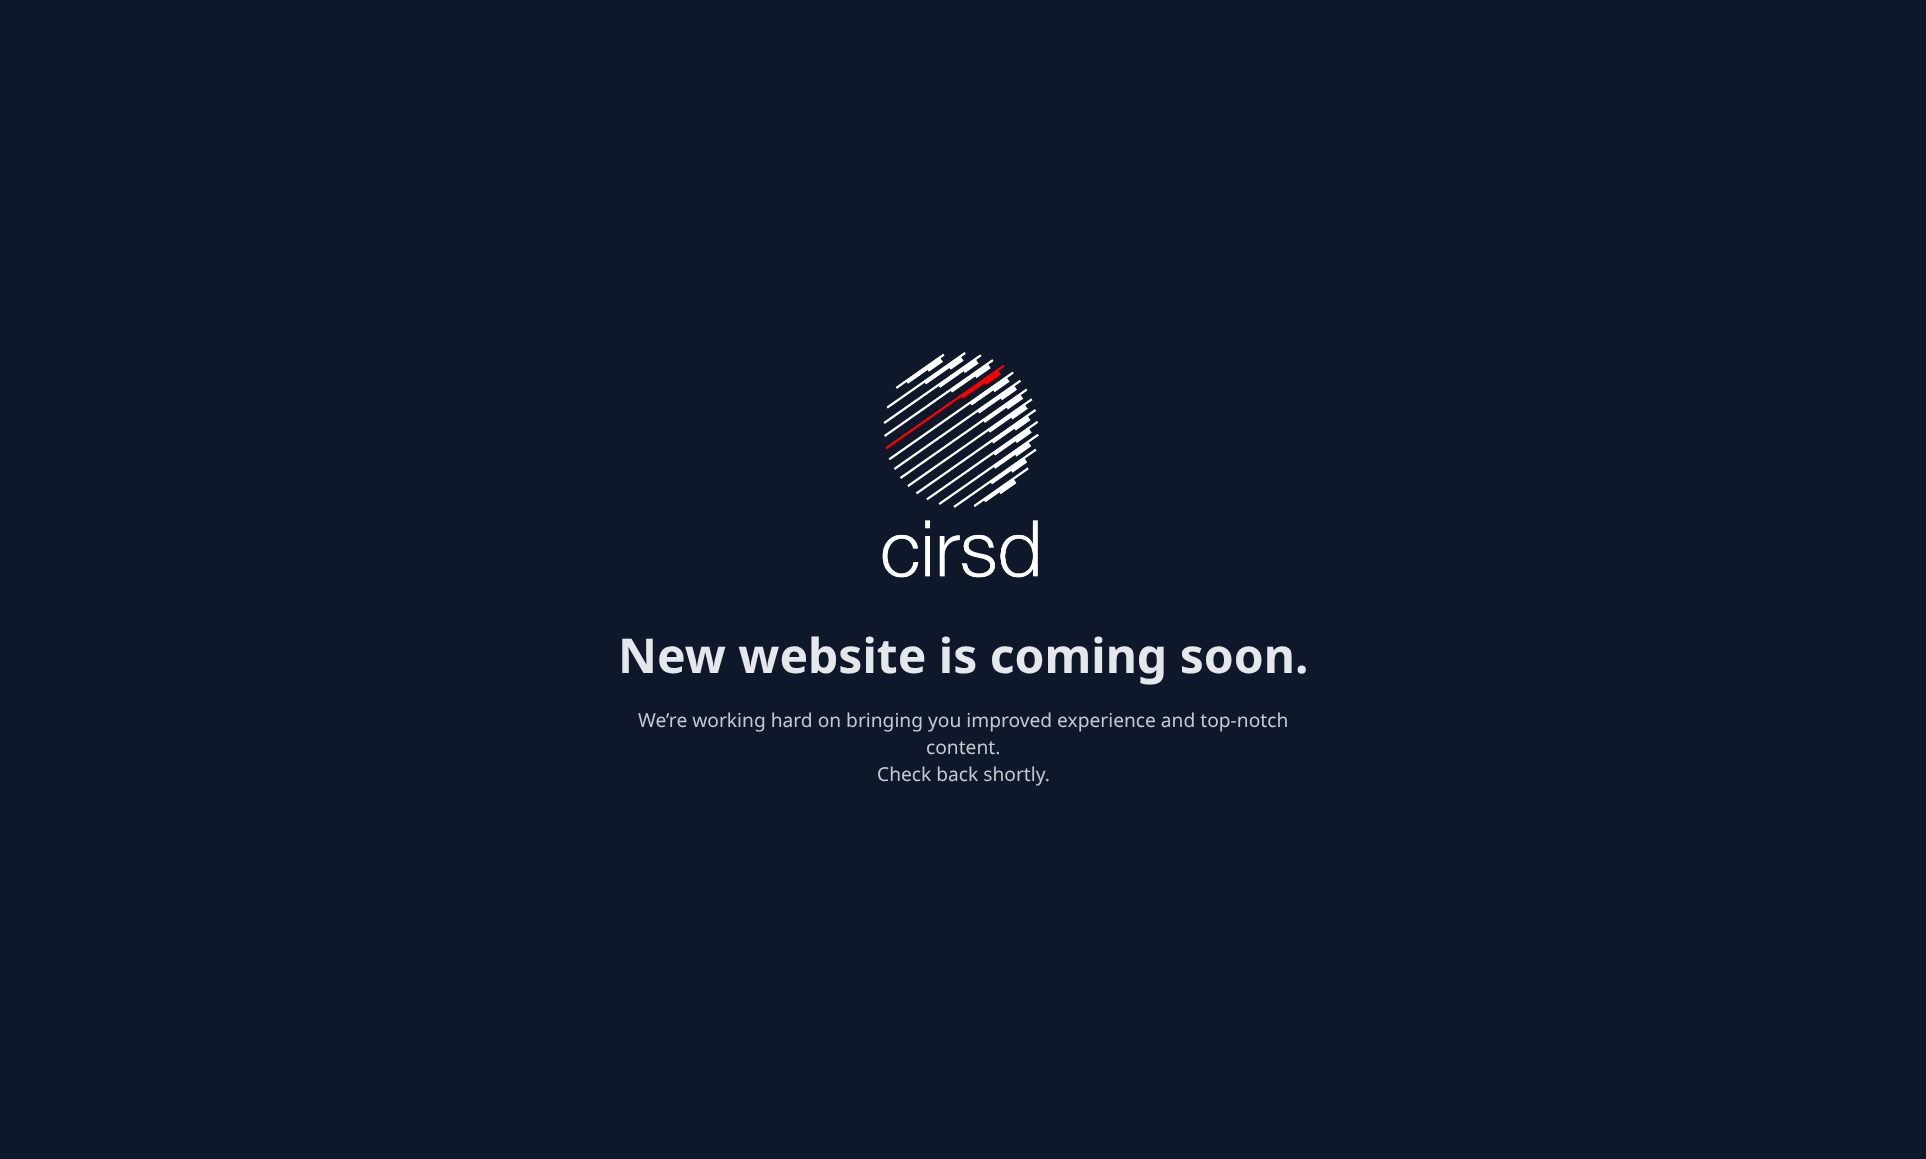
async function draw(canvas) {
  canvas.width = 1926
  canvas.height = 1159
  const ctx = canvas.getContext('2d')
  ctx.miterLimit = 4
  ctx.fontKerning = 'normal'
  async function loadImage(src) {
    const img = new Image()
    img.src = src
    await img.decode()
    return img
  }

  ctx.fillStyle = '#0f172a'
  ctx.fillRect(0, 0, 1926, 1159)
  ctx.drawImage(await loadImage('image0.png'), 882, 352, 157, 226)
  ctx.font = 'bold 48px Noto Sans'
  ctx.fillStyle = '#e5e7eb'
  ctx.fillText('New website is coming soon.', 618, 673)
  ctx.font = '19.2px Noto Sans'
  ctx.fillStyle = '#c5c8ce'
  ctx.fillText('We’re working hard on bringing you improved experience and top-notch', 638, 727)
  ctx.fillText('content.', 926, 754)
  ctx.fillText('Check back shortly.', 877, 781)
}

draw(document.querySelector('canvas'))
